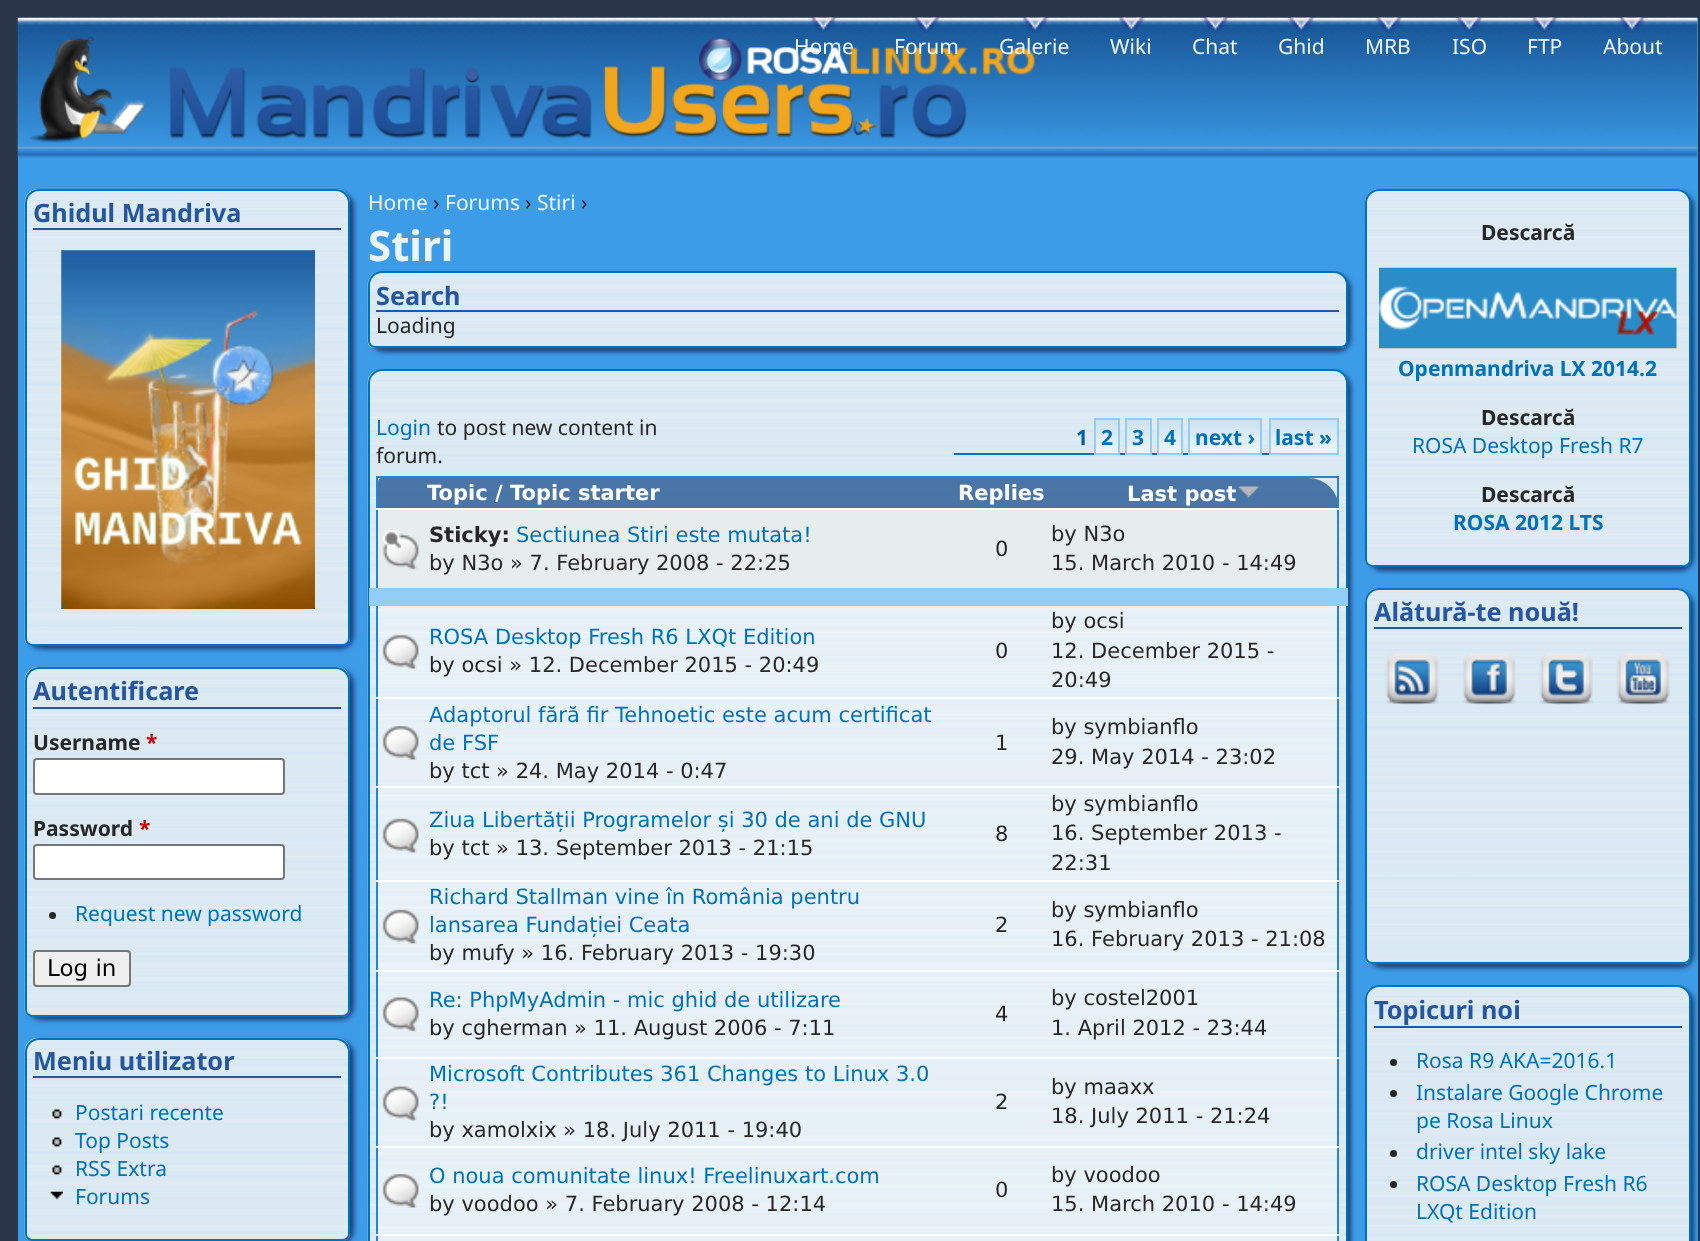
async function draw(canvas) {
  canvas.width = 1700
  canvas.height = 1241
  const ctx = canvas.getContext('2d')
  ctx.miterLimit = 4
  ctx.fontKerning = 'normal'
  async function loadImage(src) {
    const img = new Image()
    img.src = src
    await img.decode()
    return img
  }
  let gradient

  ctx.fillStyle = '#2a3649'
  ctx.fillRect(0, 0, 1700, 1241)
  ctx.fillStyle = '#3d9ce8'
  ctx.fillRect(18, 18, 1680, 1223)
  ctx.drawImage(await loadImage('image0.png'), 17, 17, 1681, 141)
  ctx.drawImage(await loadImage('image1.png'), 29, 36, 1007, 107)
  ctx.drawImage(await loadImage('image2.png'), 810, 17, 27, 16)
  ctx.drawImage(await loadImage('image3.png'), 913, 17, 27, 16)
  ctx.drawImage(await loadImage('image4.png'), 1022, 17, 27, 16)
  ctx.drawImage(await loadImage('image5.png'), 1118, 17, 27, 16)
  ctx.drawImage(await loadImage('image6.png'), 1202, 17, 27, 16)
  ctx.drawImage(await loadImage('image7.png'), 1288, 17, 27, 16)
  ctx.drawImage(await loadImage('image8.png'), 1375, 17, 27, 16)
  ctx.drawImage(await loadImage('image9.png'), 1456, 17, 27, 16)
  ctx.drawImage(await loadImage('image10.png'), 1531, 17, 27, 16)
  ctx.drawImage(await loadImage('image11.png'), 1618, 17, 28, 16)
  ctx.font = '21px Noto Sans'
  ctx.fillStyle = '#edf4f7'
  ctx.fillText('Home', 794, 54)
  ctx.fillText('Forum', 894, 54)
  ctx.fillText('Galerie', 999, 54)
  ctx.fillText('Wiki', 1110, 54)
  ctx.fillText('Chat', 1192, 54)
  ctx.fillText('Ghid', 1278, 54)
  ctx.fillText('MRB', 1365, 54)
  ctx.fillText('ISO', 1452, 54)
  ctx.fillText('FTP', 1527, 54)
  ctx.fillText('About', 1603, 54)
  ctx.fillStyle = '#1b407a'
  ctx.filter = 'blur(2.5px)'
  ctx.beginPath()
  ctx.roundRect(28, 193, 326, 456, 14)
  ctx.fill()
  ctx.filter = 'none'
  ctx.drawImage(await loadImage('image12.png'), 24, 189, 326, 457)
  ctx.beginPath()
  ctx.roundRect(26, 190, 323, 455, [13, 13, 6, 6])
  ctx.strokeStyle = '#0072b9'
  ctx.lineWidth = 2
  ctx.stroke()
  ctx.fillStyle = '#26569e'
  ctx.fillRect(33, 228, 308, 2)
  ctx.font = 'bold 25.25px Noto Sans'
  ctx.fillText('Ghidul Mandriva', 33, 222)
  ctx.drawImage(await loadImage('image13.png'), 61, 250, 254, 359)
  ctx.fillStyle = '#1b407a'
  ctx.filter = 'blur(2.5px)'
  ctx.beginPath()
  ctx.roundRect(28, 670, 326, 350, 14)
  ctx.fill()
  ctx.filter = 'none'
  ctx.drawImage(await loadImage('image14.png'), 24, 666, 326, 351)
  ctx.beginPath()
  ctx.roundRect(26, 668, 323, 348, [13, 13, 6, 6])
  ctx.stroke()
  ctx.fillStyle = '#26569e'
  ctx.fillRect(33, 707, 308, 2)
  ctx.fillText('Autentificare', 33, 700)
  ctx.font = 'bold 21px Noto Sans'
  ctx.fillStyle = '#272727'
  ctx.fillText('Username', 33, 750)
  ctx.fillStyle = '#c00'
  ctx.fillText('*', 146, 750)
  ctx.fillStyle = '#fff'
  ctx.beginPath()
  ctx.roundRect(34, 759, 250, 35, 3)
  ctx.fill()
  ctx.strokeStyle = '#767676'
  ctx.stroke()
  ctx.fillStyle = '#272727'
  ctx.fillText('Password', 33, 836)
  ctx.fillStyle = '#c00'
  ctx.fillText('*', 139, 836)
  ctx.fillStyle = '#fff'
  ctx.beginPath()
  ctx.roundRect(34, 845, 250, 34, 3)
  ctx.fill()
  ctx.stroke()
  ctx.fillStyle = '#272727'
  ctx.beginPath()
  ctx.arc(52.5, 915.5, 3.5, 0, 2 * Math.PI)
  ctx.fill()
  ctx.font = '21px Noto Sans'
  ctx.fillStyle = '#0072b9'
  ctx.fillText('Request new password', 75, 921)
  ctx.fillStyle = '#efefef'
  ctx.beginPath()
  ctx.roundRect(34, 951, 96, 35, 3)
  ctx.fill()
  ctx.stroke()
  ctx.font = '23px DejaVu Sans'
  ctx.fillStyle = '#000'
  ctx.fillText('Log in', 47, 976)
  ctx.fillStyle = '#1b407a'
  ctx.filter = 'blur(2.5px)'
  ctx.beginPath()
  ctx.roundRect(28, 1041, 326, 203, 14)
  ctx.fill()
  ctx.filter = 'none'
  ctx.drawImage(await loadImage('image15.png'), 24, 1037, 326, 204)
  ctx.beginPath()
  ctx.roundRect(26, 1039, 323, 201, [13, 13, 6, 6])
  ctx.strokeStyle = '#0072b9'
  ctx.stroke()
  ctx.fillStyle = '#26569e'
  ctx.fillRect(33, 1076, 308, 2)
  ctx.font = 'bold 25.25px Noto Sans'
  ctx.fillText('Meniu utilizator', 33, 1070)
  ctx.drawImage(await loadImage('image16.png'), 52, 1109, 10, 10)
  ctx.font = '21px Noto Sans'
  ctx.fillStyle = '#0072b9'
  ctx.fillText('Postari recente', 75, 1120)
  ctx.drawImage(await loadImage('image17.png'), 52, 1137, 10, 10)
  ctx.fillText('Top Posts', 75, 1148)
  ctx.drawImage(await loadImage('image18.png'), 52, 1165, 10, 10)
  ctx.fillText('RSS Extra', 75, 1176)
  ctx.drawImage(await loadImage('image19.png'), 50, 1191, 13, 9)
  ctx.fillText('Forums', 75, 1204)
  ctx.fillStyle = '#edf4f7'
  ctx.fillText('Home', 368, 210)
  ctx.fillStyle = '#272727'
  ctx.fillText('›', 433, 210)
  ctx.fillStyle = '#edf4f7'
  ctx.fillText('Forums', 445, 210)
  ctx.fillStyle = '#272727'
  ctx.fillText('›', 525, 210)
  ctx.fillStyle = '#edf4f7'
  ctx.fillText('Stiri', 537, 210)
  ctx.fillStyle = '#272727'
  ctx.fillText('›', 581, 210)
  ctx.font = 'bold 42px Noto Sans'
  ctx.fillStyle = '#edf4f7'
  ctx.fillText('Stiri', 368, 261)
  ctx.fillStyle = '#1b407a'
  ctx.filter = 'blur(2.5px)'
  ctx.beginPath()
  ctx.roundRect(371, 275, 980, 77, 14)
  ctx.fill()
  ctx.filter = 'none'
  ctx.drawImage(await loadImage('image20.png'), 367, 271, 981, 78)
  ctx.beginPath()
  ctx.roundRect(369, 272, 978, 75, [13, 13, 6, 6])
  ctx.stroke()
  ctx.fillStyle = '#26569e'
  ctx.fillRect(376, 310, 963, 2)
  ctx.font = 'bold 25.25px Noto Sans'
  ctx.fillText('Search', 376, 305)
  ctx.font = '21px Noto Sans'
  ctx.fillStyle = '#272727'
  ctx.fillText('Loading', 376, 333)
  ctx.fillStyle = '#1b407a'
  ctx.filter = 'blur(2.5px)'
  ctx.beginPath()
  ctx.roundRect(371, 373, 980, 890, 14)
  ctx.fill()
  ctx.filter = 'none'
  ctx.drawImage(await loadImage('image21.png'), 367, 369, 981, 872)
  ctx.beginPath()
  ctx.moveTo(382, 370)
  ctx.lineTo(1334, 370)
  ctx.bezierCurveTo(1341, 370, 1347, 376, 1347, 383)
  ctx.lineTo(1347, 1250)
  ctx.bezierCurveTo(1347, 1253.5, 1344.5, 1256, 1341, 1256)
  ctx.lineTo(375, 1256)
  ctx.bezierCurveTo(371.5, 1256, 369, 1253.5, 369, 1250)
  ctx.lineTo(369, 383)
  ctx.bezierCurveTo(369, 376, 375, 370, 382, 370)
  ctx.closePath()
  ctx.stroke()
  ctx.fillStyle = '#0072b9'
  ctx.fillText('Login', 376, 435)
  ctx.fillStyle = '#272727'
  ctx.fillText('to post new content in', 437, 435)
  ctx.fillText('forum.', 376, 463)
  ctx.fillStyle = '#0072b9'
  ctx.fillRect(954, 453, 315, 2)
  ctx.font = 'bold 21px Noto Sans'
  ctx.fillStyle = '#0062a0'
  ctx.fillText('1', 1076, 445)
  gradient = ctx.createLinearGradient(1096, 420, 1096, 453)
  gradient.addColorStop(0, '#cbe2f1')
  gradient.addColorStop(1, '#edf5fa')
  ctx.fillStyle = gradient
  ctx.fillRect(1096, 420, 22, 33)
  ctx.strokeStyle = '#91cdf5'
  ctx.strokeRect(1095, 419, 24, 35)
  ctx.fillStyle = '#0072b9'
  ctx.fillText('2', 1101, 445)
  gradient = ctx.createLinearGradient(1127, 420, 1127, 453)
  gradient.addColorStop(0, '#cbe2f1')
  gradient.addColorStop(1, '#edf5fa')
  ctx.fillStyle = gradient
  ctx.fillRect(1127, 420, 23, 33)
  ctx.strokeRect(1126, 419, 25, 35)
  ctx.fillStyle = '#0072b9'
  ctx.fillText('3', 1132, 445)
  gradient = ctx.createLinearGradient(1159, 420, 1159, 453)
  gradient.addColorStop(0, '#cbe2f1')
  gradient.addColorStop(1, '#edf5fa')
  ctx.fillStyle = gradient
  ctx.fillRect(1159, 420, 22, 33)
  ctx.strokeRect(1158, 419, 24, 35)
  ctx.fillStyle = '#0072b9'
  ctx.fillText('4', 1164, 445)
  gradient = ctx.createLinearGradient(1190, 420, 1190, 453)
  gradient.addColorStop(0, '#cbe2f1')
  gradient.addColorStop(1, '#edf5fa')
  ctx.fillStyle = gradient
  ctx.fillRect(1190, 420, 70, 33)
  ctx.strokeRect(1189, 419, 72, 35)
  ctx.fillStyle = '#0072b9'
  ctx.fillText('next ›', 1195, 445)
  gradient = ctx.createLinearGradient(1271, 420, 1271, 453)
  gradient.addColorStop(0, '#cbe2f1')
  gradient.addColorStop(1, '#edf5fa')
  ctx.fillStyle = gradient
  ctx.fillRect(1271, 420, 66, 33)
  ctx.strokeRect(1270, 419, 68, 35)
  ctx.fillStyle = '#0072b9'
  ctx.fillText('last »', 1275, 445)
  ctx.fillStyle = '#2587c4'
  ctx.fillRect(376, 476, 963, 2)
  ctx.fillStyle = '#184d8dbf'
  ctx.beginPath()
  ctx.roundRect(378, 478, 961, 31, [3.88, 31, 0, 0])
  ctx.fill()
  ctx.fillStyle = '#ffffff57'
  ctx.fillRect(378, 1236, 961, 5)
  ctx.fillStyle = '#2587c4'
  ctx.fillRect(1337, 476, 2, 765)
  ctx.fillRect(376, 476, 2, 765)
  ctx.font = 'bold 21px DejaVu Sans'
  ctx.fillStyle = '#fff'
  ctx.fillText('Topic / Topic starter', 427, 500)
  ctx.fillText('Replies', 958, 500)
  ctx.fillText('Last post', 1127, 501)
  ctx.drawImage(await loadImage('image22.png'), 1238, 486, 21, 12)
  ctx.fillStyle = '#e6edec'
  ctx.fillRect(378, 510, 959, 78)
  ctx.fillStyle = '#fff'
  ctx.fillRect(376, 508, 963, 2)
  ctx.fillStyle = '#91cdf5'
  ctx.fillRect(369, 588, 979, 18)
  ctx.drawImage(await loadImage('image23.png'), 382, 530, 37, 40)
  ctx.fillStyle = '#272727'
  ctx.fillText('Sticky:', 429, 542)
  ctx.font = '21px DejaVu Sans'
  ctx.fillStyle = '#0072b9'
  ctx.fillText('Sectiunea Stiri este mutata!', 516, 542)
  ctx.fillStyle = '#272727'
  ctx.fillText('by N3o » 7. February 2008 - 22:25', 429, 570)
  ctx.fillText('0', 995, 556)
  ctx.fillText('by N3o', 1051, 541)
  ctx.fillText('15. March 2010 - 14:49', 1051, 570)
  ctx.fillStyle = '#ffffff57'
  ctx.fillRect(378, 606, 959, 91)
  ctx.drawImage(await loadImage('image24.png'), 382, 634, 37, 35)
  ctx.fillStyle = '#0072b9'
  ctx.fillText('ROSA Desktop Fresh R6 LXQt Edition', 429, 644)
  ctx.fillStyle = '#272727'
  ctx.fillText('by ocsi » 12. December 2015 - 20:49', 429, 672)
  ctx.fillText('0', 995, 658)
  ctx.fillText('by ocsi', 1051, 628)
  ctx.fillText('12. December 2015 -', 1051, 658)
  ctx.fillText('20:49', 1051, 687)
  ctx.fillStyle = '#ffffff57'
  ctx.fillRect(378, 699, 959, 87)
  ctx.fillStyle = '#fff'
  ctx.fillRect(376, 697, 963, 2)
  ctx.drawImage(await loadImage('image25.png'), 382, 725, 37, 35)
  ctx.fillStyle = '#0072b9'
  ctx.fillText('Adaptorul fără fir Tehnoetic este acum certificat', 429, 722)
  ctx.fillText('de FSF', 429, 750)
  ctx.fillStyle = '#272727'
  ctx.fillText('by tct » 24. May 2014 - 0:47', 429, 778)
  ctx.fillText('1', 995, 750)
  ctx.fillText('by symbianflo', 1051, 734)
  ctx.fillText('29. May 2014 - 23:02', 1051, 764)
  ctx.fillStyle = '#ffffff57'
  ctx.fillRect(378, 788, 959, 92)
  ctx.fillStyle = '#fff'
  ctx.fillRect(376, 786, 963, 2)
  ctx.drawImage(await loadImage('image26.png'), 382, 818, 37, 35)
  ctx.fillStyle = '#0072b9'
  ctx.fillText('Ziua Libertății Programelor și 30 de ani de GNU', 429, 827)
  ctx.fillStyle = '#272727'
  ctx.fillText('by tct » 13. September 2013 - 21:15', 429, 855)
  ctx.fillText('8', 995, 841)
  ctx.fillText('by symbianflo', 1051, 811)
  ctx.fillText('16. September 2013 -', 1051, 840)
  ctx.fillText('22:31', 1051, 870)
  ctx.fillStyle = '#ffffff57'
  ctx.fillRect(378, 882, 959, 88)
  ctx.fillStyle = '#fff'
  ctx.fillRect(376, 880, 963, 2)
  ctx.drawImage(await loadImage('image27.png'), 382, 909, 37, 35)
  ctx.fillStyle = '#0072b9'
  ctx.fillText('Richard Stallman vine în România pentru', 429, 904)
  ctx.fillText('lansarea Fundației Ceata', 429, 932)
  ctx.fillStyle = '#272727'
  ctx.fillText('by mufy » 16. February 2013 - 19:30', 429, 960)
  ctx.fillText('2', 995, 932)
  ctx.fillText('by symbianflo', 1051, 917)
  ctx.fillText('16. February 2013 - 21:08', 1051, 946)
  ctx.fillStyle = '#ffffff57'
  ctx.fillRect(378, 972, 959, 85)
  ctx.fillStyle = '#fff'
  ctx.fillRect(376, 970, 963, 2)
  ctx.drawImage(await loadImage('image28.png'), 382, 997, 37, 35)
  ctx.fillStyle = '#0072b9'
  ctx.fillText('Re: PhpMyAdmin - mic ghid de utilizare', 429, 1007)
  ctx.fillStyle = '#272727'
  ctx.fillText('by cgherman » 11. August 2006 - 7:11', 429, 1035)
  ctx.fillText('4', 995, 1021)
  ctx.fillText('by costel2001', 1051, 1005)
  ctx.fillText('1. April 2012 - 23:44', 1051, 1035)
  ctx.fillStyle = '#ffffff57'
  ctx.fillRect(378, 1059, 959, 87)
  ctx.fillStyle = '#fff'
  ctx.fillRect(376, 1057, 963, 2)
  ctx.drawImage(await loadImage('image29.png'), 382, 1086, 37, 35)
  ctx.fillStyle = '#0072b9'
  ctx.fillText('Microsoft Contributes 361 Changes to Linux 3.0', 429, 1081)
  ctx.fillText('?!', 429, 1109)
  ctx.fillStyle = '#272727'
  ctx.fillText('by xamolxix » 18. July 2011 - 19:40', 429, 1137)
  ctx.fillText('2', 995, 1109)
  ctx.fillText('by maaxx', 1051, 1094)
  ctx.fillText('18. July 2011 - 21:24', 1051, 1123)
  ctx.fillStyle = '#ffffff57'
  ctx.fillRect(378, 1148, 959, 86)
  ctx.fillStyle = '#fff'
  ctx.fillRect(376, 1146, 963, 2)
  ctx.drawImage(await loadImage('image30.png'), 382, 1173, 37, 35)
  ctx.fillStyle = '#0072b9'
  ctx.fillText('O noua comunitate linux! Freelinuxart.com', 429, 1183)
  ctx.fillStyle = '#272727'
  ctx.fillText('by voodoo » 7. February 2008 - 12:14', 429, 1211)
  ctx.fillText('0', 995, 1197)
  ctx.fillText('by voodoo', 1051, 1182)
  ctx.fillText('15. March 2010 - 14:49', 1051, 1211)
  ctx.fillStyle = '#fff'
  ctx.fillRect(376, 1234, 963, 2)
  ctx.save()
  ctx.beginPath()
  ctx.rect(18, 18, 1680, 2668)
  ctx.clip()
  ctx.fillStyle = '#1b407a'
  ctx.filter = 'blur(2.5px)'
  ctx.beginPath()
  ctx.roundRect(1369, 193, 325, 378, 14)
  ctx.fill()
  ctx.filter = 'none'
  ctx.restore()
  ctx.drawImage(await loadImage('image31.png'), 1365, 189, 326, 378)
  ctx.beginPath()
  ctx.roundRect(1366, 190, 324, 376, [13, 13, 6, 6])
  ctx.strokeStyle = '#0072b9'
  ctx.stroke()
  ctx.font = 'bold 21px Noto Sans'
  ctx.fillStyle = '#272727'
  ctx.fillText('Descarcă', 1481, 240)
  ctx.drawImage(await loadImage('image32.png'), 1379, 267, 298, 82)
  ctx.fillStyle = '#0072b9'
  ctx.fillText('Openmandriva LX 2014.2', 1398, 376)
  ctx.fillStyle = '#272727'
  ctx.fillText('Descarcă', 1481, 425)
  ctx.font = '21px Noto Sans'
  ctx.fillStyle = '#0072b9'
  ctx.fillText('ROSA Desktop Fresh R7', 1412, 453)
  ctx.font = 'bold 21px Noto Sans'
  ctx.fillStyle = '#272727'
  ctx.fillText('Descarcă', 1481, 502)
  ctx.fillStyle = '#0072b9'
  ctx.fillText('ROSA 2012 LTS', 1453, 530)
  ctx.save()
  ctx.beginPath()
  ctx.rect(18, 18, 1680, 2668)
  ctx.clip()
  ctx.fillStyle = '#1b407a'
  ctx.filter = 'blur(2.5px)'
  ctx.beginPath()
  ctx.roundRect(1369, 592, 325, 376, 14)
  ctx.fill()
  ctx.filter = 'none'
  ctx.restore()
  ctx.drawImage(await loadImage('image33.png'), 1365, 588, 326, 377)
  ctx.beginPath()
  ctx.roundRect(1366, 589, 324, 374, [13, 13, 6, 6])
  ctx.stroke()
  ctx.fillStyle = '#26569e'
  ctx.fillRect(1374, 627, 308, 2)
  ctx.font = 'bold 25.25px Noto Sans'
  ctx.fillText('Alătură-te nouă!', 1374, 621)
  ctx.drawImage(await loadImage('image34.png'), 1385, 652, 54, 53)
  ctx.drawImage(await loadImage('image35.png'), 1462, 652, 54, 53)
  ctx.drawImage(await loadImage('image36.png'), 1539, 652, 54, 53)
  ctx.drawImage(await loadImage('image37.png'), 1616, 652, 54, 53)
  ctx.save()
  ctx.beginPath()
  ctx.rect(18, 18, 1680, 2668)
  ctx.clip()
  ctx.fillStyle = '#1b407a'
  ctx.filter = 'blur(2.5px)'
  ctx.beginPath()
  ctx.roundRect(1369, 989, 325, 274, 14)
  ctx.fill()
  ctx.filter = 'none'
  ctx.restore()
  ctx.drawImage(await loadImage('image38.png'), 1365, 985, 326, 256)
  ctx.beginPath()
  ctx.moveTo(1379, 986)
  ctx.lineTo(1677, 986)
  ctx.bezierCurveTo(1684, 986, 1690, 992, 1690, 999)
  ctx.lineTo(1690, 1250)
  ctx.bezierCurveTo(1690, 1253.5, 1687.5, 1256, 1684, 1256)
  ctx.lineTo(1372, 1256)
  ctx.bezierCurveTo(1368.5, 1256, 1366, 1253.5, 1366, 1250)
  ctx.lineTo(1366, 999)
  ctx.bezierCurveTo(1366, 992, 1372, 986, 1379, 986)
  ctx.closePath()
  ctx.stroke()
  ctx.fillRect(1374, 1026, 308, 2)
  ctx.fillText('Topicuri noi', 1374, 1019)
  ctx.fillStyle = '#272727'
  ctx.beginPath()
  ctx.arc(1393.5, 1062.5, 3.5, 0, 2 * Math.PI)
  ctx.fill()
  ctx.font = '21px Noto Sans'
  ctx.fillStyle = '#0072b9'
  ctx.fillText('Rosa R9 AKA=2016.1', 1416, 1068)
  ctx.fillStyle = '#272727'
  ctx.beginPath()
  ctx.arc(1393.5, 1093.5, 3.5, 0, 2 * Math.PI)
  ctx.fill()
  ctx.fillStyle = '#0072b9'
  ctx.fillText('Instalare Google Chrome', 1416, 1100)
  ctx.fillText('pe Rosa Linux', 1416, 1128)
  ctx.fillStyle = '#272727'
  ctx.beginPath()
  ctx.arc(1393.5, 1153.5, 3.5, 0, 2 * Math.PI)
  ctx.fill()
  ctx.fillStyle = '#0072b9'
  ctx.fillText('driver intel sky lake', 1416, 1159)
  ctx.fillStyle = '#272727'
  ctx.beginPath()
  ctx.arc(1393.5, 1184.5, 3.5, 0, 2 * Math.PI)
  ctx.fill()
  ctx.fillStyle = '#0072b9'
  ctx.fillText('ROSA Desktop Fresh R6', 1416, 1191)
  ctx.fillText('LXQt Edition', 1416, 1219)
}

draw(document.querySelector('canvas'))
